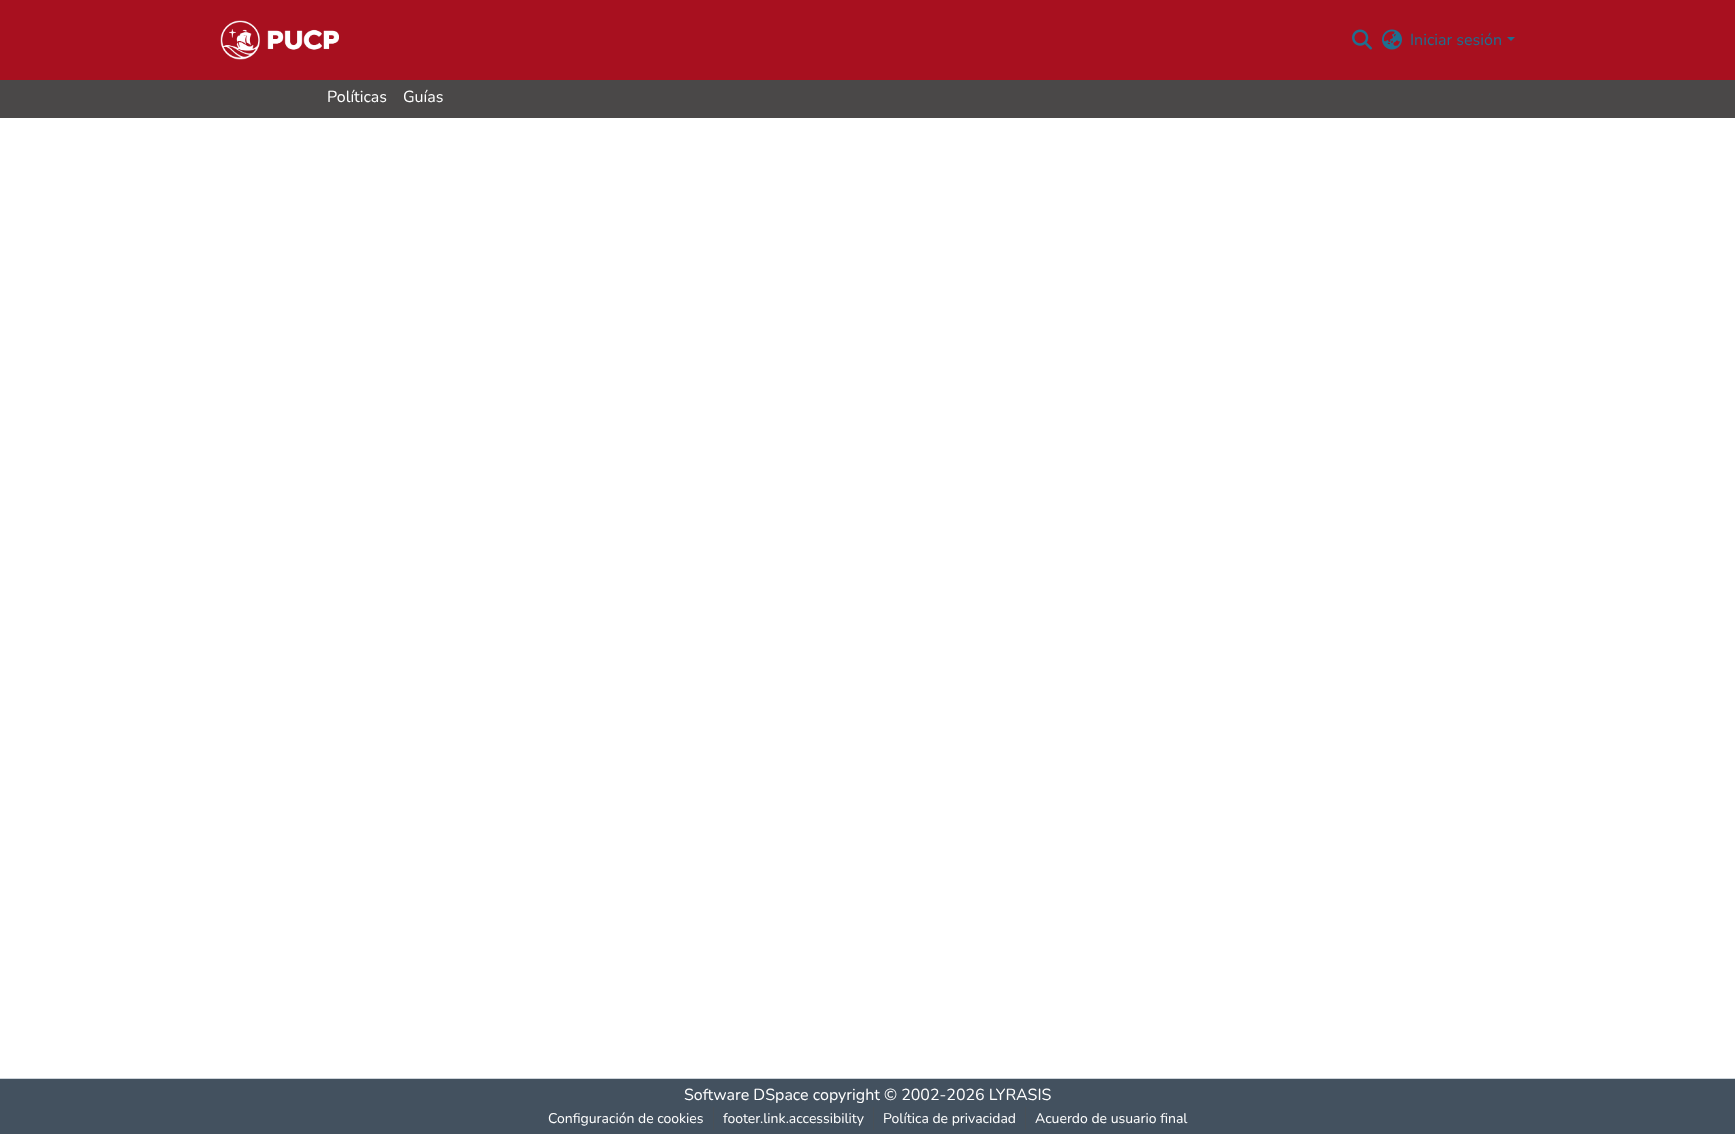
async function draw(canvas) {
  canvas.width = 1735
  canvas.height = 1134
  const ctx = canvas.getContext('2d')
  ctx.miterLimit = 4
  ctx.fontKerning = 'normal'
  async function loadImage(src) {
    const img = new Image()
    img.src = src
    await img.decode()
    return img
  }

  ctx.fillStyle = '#fff'
  ctx.fillRect(0, 0, 1735, 1134)
  ctx.fillStyle = '#a8101f'
  ctx.fillRect(0, 0, 1735, 80)
  ctx.drawImage(await loadImage('image0.png'), 220, 20, 119, 40)
  ctx.drawImage(await loadImage('image1.png'), 1352, 29, 20, 21)
  ctx.drawImage(await loadImage('image2.png'), 1382, 29, 20, 21)
  ctx.font = '16px Nunito'
  ctx.fillStyle = '#1e6f90'
  ctx.fillText('Iniciar sesión', 1410, 45)
  ctx.beginPath()
  ctx.moveTo(1507, 37)
  ctx.lineTo(1515, 37)
  ctx.lineTo(1511, 41)
  ctx.closePath()
  ctx.fill()
  ctx.fillStyle = '#4a4848'
  ctx.fillRect(0, 80, 1735, 38)
  ctx.fillStyle = '#fff'
  ctx.fillText('Políticas', 327, 102)
  ctx.fillText('Guías', 403, 102)
  ctx.fillStyle = '#43515f'
  ctx.fillRect(0, 1079, 1735, 55)
  ctx.fillStyle = '#ced4da'
  ctx.fillRect(0, 1078, 1735, 1)
  ctx.fillStyle = '#fff'
  ctx.fillText('Software DSpace copyright © 2002-2026 LYRASIS', 684, 1100)
  ctx.font = '14px Nunito'
  ctx.fillText('Configuración de cookies', 548, 1123)
  ctx.fillStyle = '#495057'
  ctx.fillRect(713, 1107, 1, 23)
  ctx.fillStyle = '#fff'
  ctx.fillText('footer.link.accessibility', 723, 1123)
  ctx.fillStyle = '#495057'
  ctx.fillRect(873, 1107, 1, 23)
  ctx.fillStyle = '#fff'
  ctx.fillText('Política de privacidad', 883, 1123)
  ctx.fillStyle = '#495057'
  ctx.fillRect(1025, 1107, 1, 23)
  ctx.fillStyle = '#fff'
  ctx.fillText('Acuerdo de usuario final', 1035, 1123)
}

draw(document.querySelector('canvas'))
